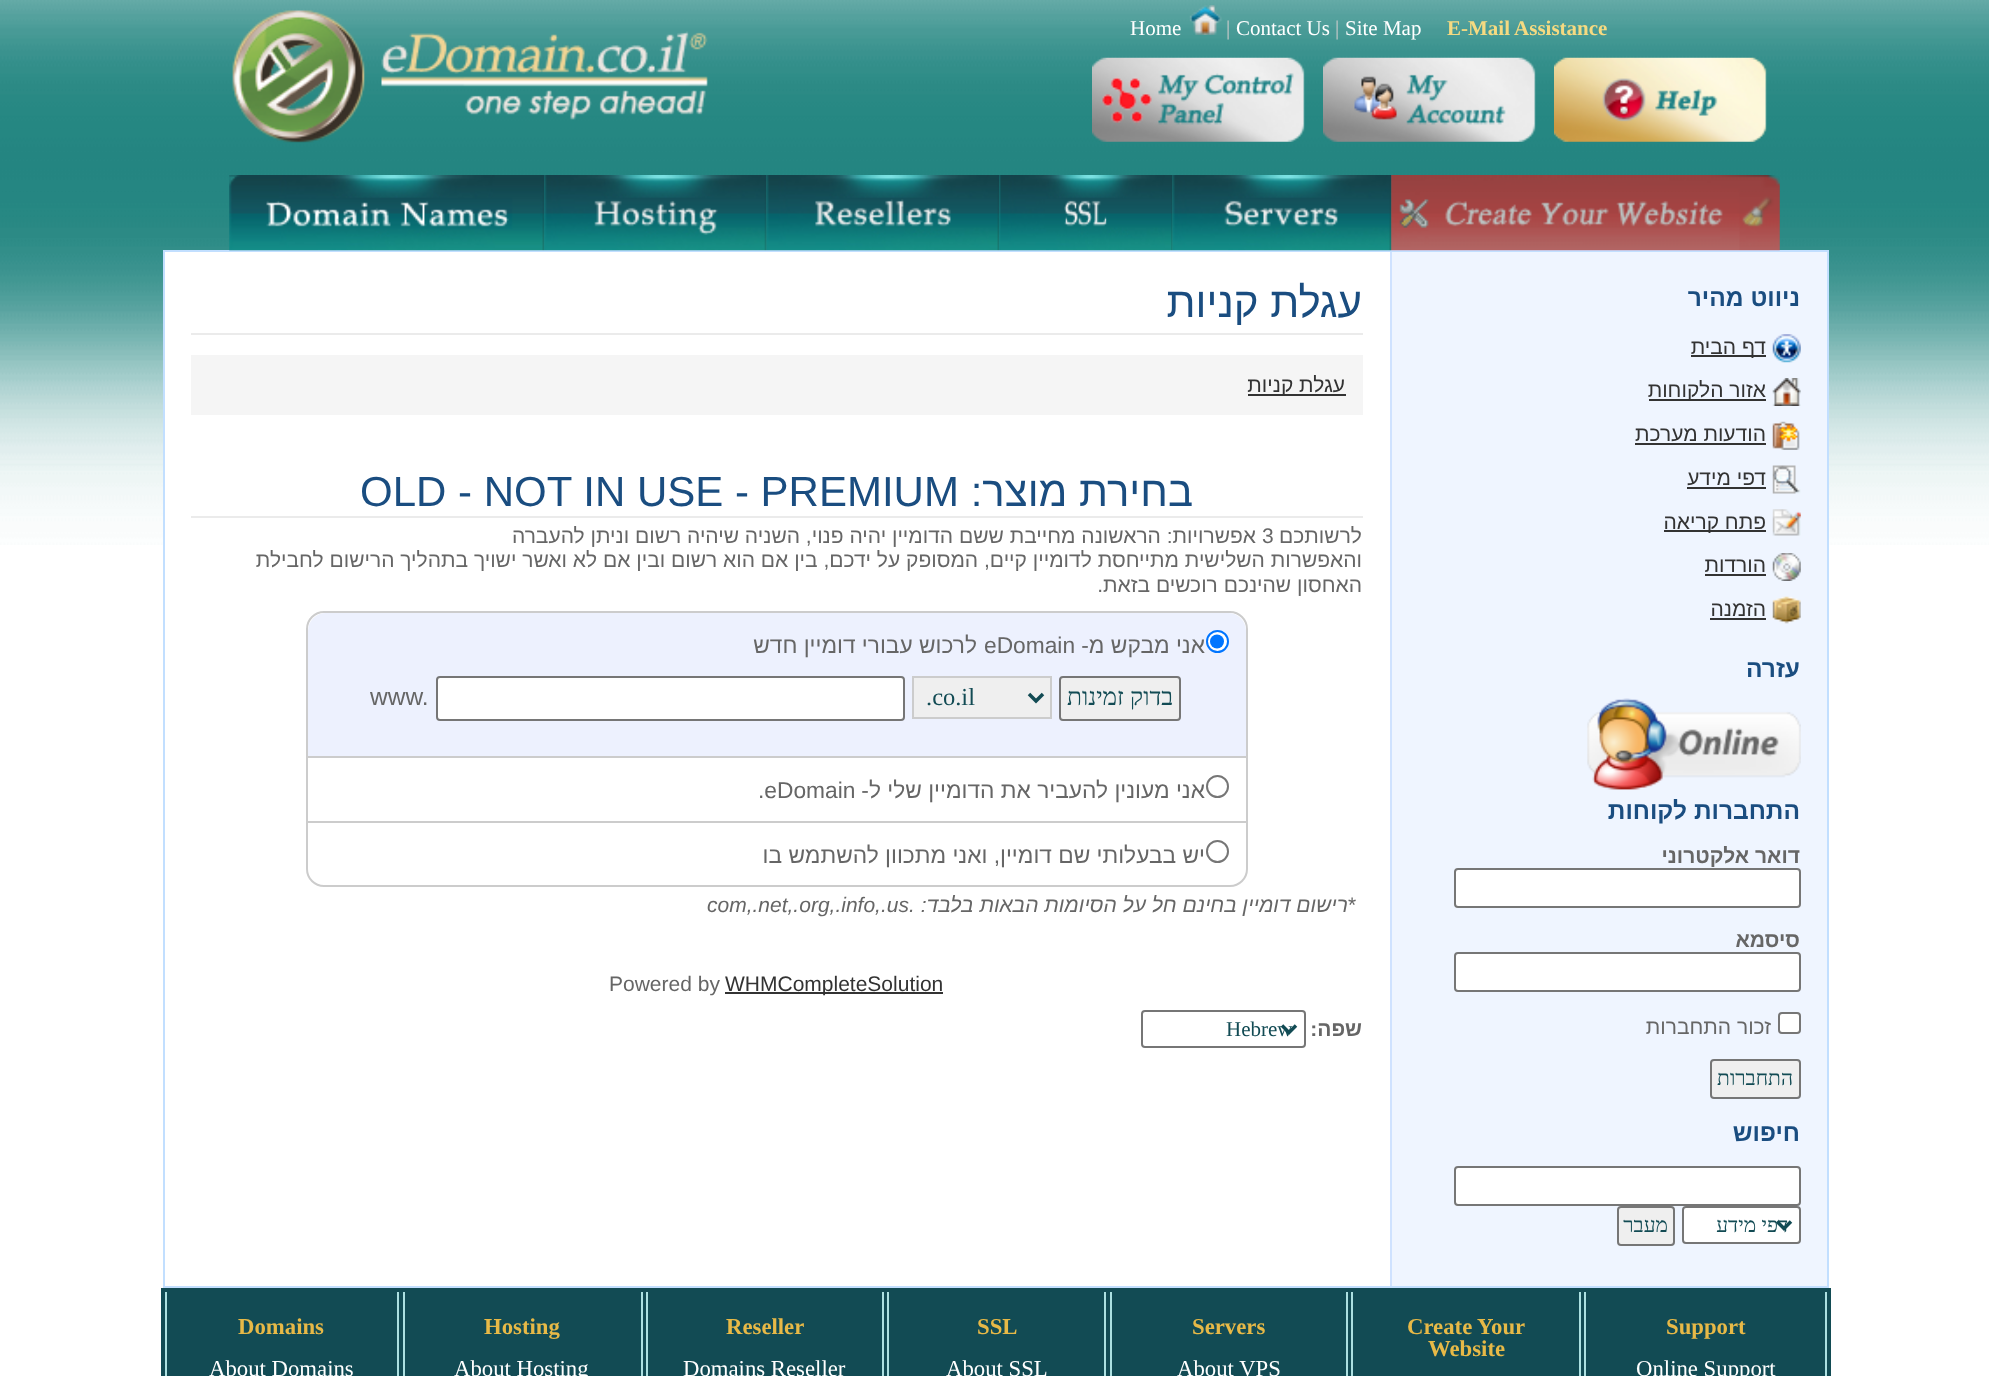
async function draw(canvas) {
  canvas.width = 1989
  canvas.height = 1376
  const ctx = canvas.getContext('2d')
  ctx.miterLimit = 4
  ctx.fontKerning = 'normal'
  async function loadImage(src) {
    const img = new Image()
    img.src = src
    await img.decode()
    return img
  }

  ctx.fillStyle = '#fff'
  ctx.fillRect(0, 0, 1989, 1376)
  ctx.drawImage(await loadImage('image0.png'), 0, 0, 1989, 545)
  ctx.font = 'bold 21px Liberation Serif'
  ctx.fillStyle = '#f5da81'
  ctx.fillText('E-Mail Assistance', 1447, 35)
  ctx.font = '21px Liberation Serif'
  ctx.fillStyle = '#fff'
  ctx.fillText('Site Map', 1345, 35)
  ctx.fillStyle = '#ccc'
  ctx.fillText('|', 1335, 35)
  ctx.fillStyle = '#fff'
  ctx.fillText('Contact Us', 1236, 35)
  ctx.fillStyle = '#ccc'
  ctx.fillText('|', 1226, 35)
  ctx.drawImage(await loadImage('image1.png'), 1189, 5, 33, 30)
  ctx.fillStyle = '#fff'
  ctx.fillText('Home', 1130, 35)
  ctx.drawImage(await loadImage('image2.png'), 232, 10, 476, 133)
  ctx.drawImage(await loadImage('image3.png'), 1554, 57, 213, 85)
  ctx.drawImage(await loadImage('image4.png'), 1323, 57, 213, 85)
  ctx.drawImage(await loadImage('image5.png'), 1092, 57, 213, 85)
  ctx.strokeStyle = '#c2dfff'
  ctx.lineWidth = 2
  ctx.strokeRect(164, 251, 1664, 1036)
  ctx.drawImage(await loadImage('image11.png'), 229, 175, 316, 76)
  ctx.drawImage(await loadImage('image10.png'), 544, 175, 223, 76)
  ctx.drawImage(await loadImage('image9.png'), 766, 175, 234, 76)
  ctx.drawImage(await loadImage('image8.png'), 999, 175, 174, 76)
  ctx.drawImage(await loadImage('image7.png'), 1172, 175, 220, 76)
  ctx.drawImage(await loadImage('image6.png'), 1391, 175, 389, 76)
  ctx.fillStyle = '#eff5ff'
  ctx.fillRect(1392, 252, 435, 1034)
  ctx.fillStyle = '#cfe2ff'
  ctx.fillRect(1390, 252, 2, 1034)
  ctx.direction = 'rtl'
  ctx.font = 'bold 24.5px Liberation Sans'
  ctx.fillStyle = '#1a4d80'
  ctx.fillText('ניווט מהיר', 1800, 306)
  ctx.drawImage(await loadImage('image12.png'), 1772, 334, 29, 29)
  ctx.fillStyle = '#333'
  ctx.fillRect(1691, 355, 75, 2)
  ctx.font = '21px Liberation Sans'
  ctx.fillText('דף הבית', 1766, 354)
  ctx.drawImage(await loadImage('image13.png'), 1772, 378, 29, 28)
  ctx.fillRect(1649, 399, 117, 2)
  ctx.fillText('אזור הלקוחות', 1766, 397)
  ctx.drawImage(await loadImage('image14.png'), 1772, 421, 28, 29)
  ctx.fillText('הודעות מערכת', 1766, 441)
  ctx.fillRect(1635, 443, 131, 2)
  ctx.drawImage(await loadImage('image15.png'), 1772, 465, 29, 29)
  ctx.fillText('דפי מידע', 1766, 485)
  ctx.fillRect(1687, 487, 79, 2)
  ctx.drawImage(await loadImage('image16.png'), 1772, 509, 29, 27)
  ctx.fillRect(1664, 530, 102, 2)
  ctx.fillText('פתח קריאה', 1766, 529)
  ctx.drawImage(await loadImage('image17.png'), 1772, 553, 29, 28)
  ctx.fillText('הורדות', 1766, 572)
  ctx.fillRect(1705, 574, 61, 2)
  ctx.drawImage(await loadImage('image18.png'), 1772, 596, 29, 28)
  ctx.fillText('הזמנה', 1766, 616)
  ctx.fillRect(1710, 618, 56, 2)
  ctx.font = 'bold 24.5px Liberation Sans'
  ctx.fillStyle = '#1a4d80'
  ctx.fillText('עזרה', 1800, 677)
  ctx.drawImage(await loadImage('image19.png'), 1587, 698, 214, 92)
  ctx.fillText('התחברות לקוחות', 1800, 819)
  ctx.font = 'bold 21px Liberation Sans'
  ctx.fillStyle = '#666'
  ctx.fillText('דואר אלקטרוני', 1800, 863)
  ctx.fillStyle = '#fff'
  ctx.beginPath()
  ctx.roundRect(1455, 869, 345, 38, 3)
  ctx.fill()
  ctx.strokeStyle = '#767676'
  ctx.stroke()
  ctx.fillStyle = '#666'
  ctx.fillText('סיסמא', 1800, 947)
  ctx.fillStyle = '#fff'
  ctx.beginPath()
  ctx.roundRect(1455, 953, 345, 38, 3)
  ctx.fill()
  ctx.stroke()
  ctx.beginPath()
  ctx.roundRect(1779, 1013, 21, 20, 3)
  ctx.fill()
  ctx.stroke()
  ctx.font = '21px Liberation Sans'
  ctx.fillStyle = '#666'
  ctx.fillText('זכור התחברות', 1771, 1034)
  ctx.fillStyle = '#efefef'
  ctx.beginPath()
  ctx.roundRect(1711, 1060, 89, 38, 3)
  ctx.fill()
  ctx.stroke()
  ctx.font = '21px Liberation Serif'
  ctx.fillStyle = '#124b54'
  ctx.fillText('התחברות', 1793, 1085)
  ctx.font = 'bold 24.5px Liberation Sans'
  ctx.fillStyle = '#1a4d80'
  ctx.fillText('חיפוש', 1800, 1141)
  ctx.fillStyle = '#fff'
  ctx.beginPath()
  ctx.roundRect(1455, 1167, 345, 38, 3)
  ctx.fill()
  ctx.stroke()
  ctx.beginPath()
  ctx.roundRect(1683, 1207, 117, 36, 3)
  ctx.fill()
  ctx.stroke()
  ctx.beginPath()
  ctx.moveTo(1777, 1221.5)
  ctx.lineTo(1784, 1228.5)
  ctx.lineTo(1791, 1221.5)
  ctx.strokeStyle = '#124b54'
  ctx.lineWidth = 3.5
  ctx.stroke()
  ctx.font = '21px Liberation Serif'
  ctx.fillStyle = '#124b54'
  ctx.fillText('דפי מידע', 1788, 1232)
  ctx.fillStyle = '#efefef'
  ctx.beginPath()
  ctx.roundRect(1618, 1207, 56, 38, 3)
  ctx.fill()
  ctx.strokeStyle = '#767676'
  ctx.lineWidth = 2
  ctx.stroke()
  ctx.fillStyle = '#124b54'
  ctx.fillText('מעבר', 1668, 1232)
  ctx.fillStyle = '#fff'
  ctx.fillRect(165, 252, 1225, 293)
  ctx.fillStyle = '#ebebeb'
  ctx.fillRect(191, 333, 1172, 2)
  ctx.font = '42px Liberation Sans'
  ctx.fillStyle = '#1a4d80'
  ctx.fillText('עגלת קניות', 1362, 317)
  ctx.fillStyle = '#f5f5f5'
  ctx.fillRect(191, 355, 1172, 60)
  ctx.fillStyle = '#333'
  ctx.fillRect(1248, 394, 98, 2)
  ctx.font = '21px Liberation Sans'
  ctx.fillText('עגלת קניות', 1345, 392)
  ctx.fillStyle = '#ebebeb'
  ctx.fillRect(191, 516, 1172, 2)
  ctx.font = '42px Liberation Sans'
  ctx.fillStyle = '#1a4d80'
  ctx.fillText('בחירת מוצר:', 1193, 506)
  ctx.direction = 'ltr'
  ctx.fillText('OLD - NOT IN USE - PREMIUM', 360, 506)
  ctx.direction = 'rtl'
  ctx.font = '21px Liberation Sans'
  ctx.fillStyle = '#666'
  ctx.fillText('לרשותכם', 1362, 543)
  ctx.direction = 'ltr'
  ctx.fillText('3', 1262, 543)
  ctx.direction = 'rtl'
  ctx.fillText('אפשרויות: הראשונה מחייבת ששם הדומיין יהיה פנוי, השניה שיהיה רשום וניתן להעברה', 1256, 543)
  ctx.fillText('והאפשרות השלישית מתייחסת לדומיין קיים, המסופק על ידכם, בין אם הוא רשום ובין אם לא ואשר ישויך בתהליך הרישום לחבילת', 1362, 567)
  ctx.fillText('האחסון שהינכם רוכשים בזאת.', 1362, 592)
  ctx.beginPath()
  ctx.roundRect(307, 612, 940, 274, 17)
  ctx.strokeStyle = '#ccc'
  ctx.stroke()
  ctx.fillStyle = '#edf1fe'
  ctx.beginPath()
  ctx.roundRect(308, 613, 938, 145, [18, 18, 0, 0])
  ctx.fill()
  ctx.fillStyle = '#ccc'
  ctx.fillRect(308, 756, 938, 2)
  ctx.fillStyle = '#fff'
  ctx.beginPath()
  ctx.arc(1217.5, 641.5, 10.5, 0, 2 * Math.PI)
  ctx.fill()
  ctx.strokeStyle = '#0075ff'
  ctx.stroke()
  ctx.fillStyle = '#0075ff'
  ctx.beginPath()
  ctx.arc(1217, 641.5, 7, 0, 2 * Math.PI)
  ctx.fill()
  ctx.font = '22.75px Liberation Sans'
  ctx.fillStyle = '#666'
  ctx.fillText('אני מבקש מ-', 1205, 653)
  ctx.direction = 'ltr'
  ctx.fillText('eDomain', 984, 653)
  ctx.direction = 'rtl'
  ctx.fillText('לרכוש עבורי דומיין חדש', 977, 653)
  ctx.fillStyle = '#efefef'
  ctx.beginPath()
  ctx.roundRect(1060, 677, 120, 43, 3)
  ctx.fill()
  ctx.strokeStyle = '#767676'
  ctx.stroke()
  ctx.font = '24.5px Liberation Serif'
  ctx.fillStyle = '#124b54'
  ctx.fillText('בדוק זמינות', 1173, 705)
  ctx.fillStyle = '#efefef'
  ctx.beginPath()
  ctx.rect(913, 677, 138, 41)
  ctx.fill()
  ctx.strokeStyle = '#ccc'
  ctx.stroke()
  ctx.beginPath()
  ctx.moveTo(1029, 694)
  ctx.lineTo(1036, 701)
  ctx.lineTo(1043, 694)
  ctx.strokeStyle = '#124b54'
  ctx.lineWidth = 3.5
  ctx.stroke()
  ctx.direction = 'ltr'
  ctx.fillStyle = '#124b54'
  ctx.fillText('.co.il', 926, 705)
  ctx.fillStyle = '#fff'
  ctx.beginPath()
  ctx.roundRect(437, 677, 467, 43, 3)
  ctx.fill()
  ctx.strokeStyle = '#767676'
  ctx.lineWidth = 2
  ctx.stroke()
  ctx.font = '24.5px Liberation Sans'
  ctx.fillStyle = '#666'
  ctx.fillText('www.', 370, 705)
  ctx.fillStyle = '#ccc'
  ctx.fillRect(308, 821, 938, 2)
  ctx.beginPath()
  ctx.arc(1217.5, 786.5, 10.5, 0, 2 * Math.PI)
  ctx.stroke()
  ctx.direction = 'rtl'
  ctx.font = '22.75px Liberation Sans'
  ctx.fillStyle = '#666'
  ctx.fillText('אני מעונין להעביר את הדומיין שלי ל-', 1205, 798)
  ctx.direction = 'ltr'
  ctx.fillText('.eDomain', 758, 798)
  ctx.beginPath()
  ctx.arc(1217.5, 851.5, 10.5, 0, 2 * Math.PI)
  ctx.stroke()
  ctx.direction = 'rtl'
  ctx.fillText('יש בבעלותי שם דומיין, ואני מתכוון להשתמש בו', 1205, 863)
  ctx.direction = 'ltr'
  ctx.font = '21px Liberation Sans'
  ctx.fillText('*', 1348, 912)
  ctx.direction = 'rtl'
  ctx.font = 'italic 21px Liberation Sans'
  ctx.fillText('רישום דומיין בחינם חל על הסיומות הבאות בלבד: .', 1348, 912)
  ctx.direction = 'ltr'
  ctx.fillText('com,.net,.org,.info,.us', 707, 912)
  ctx.fillStyle = '#333'
  ctx.fillRect(725, 992, 218, 2)
  ctx.font = '21px Liberation Sans'
  ctx.fillText('WHMCompleteSolution', 725, 991)
  ctx.fillStyle = '#666'
  ctx.fillText('Powered by', 609, 991)
  ctx.direction = 'rtl'
  ctx.font = 'bold 21px Liberation Sans'
  ctx.fillText('שפה:', 1362, 1036)
  ctx.beginPath()
  ctx.roundRect(1142, 1011, 163, 36, 3)
  ctx.stroke()
  ctx.beginPath()
  ctx.moveTo(1282, 1025.5)
  ctx.lineTo(1289, 1032.5)
  ctx.lineTo(1296, 1025.5)
  ctx.strokeStyle = '#124b54'
  ctx.lineWidth = 3.5
  ctx.stroke()
  ctx.direction = 'ltr'
  ctx.font = '21px Liberation Serif'
  ctx.fillStyle = '#124b54'
  ctx.fillText('Hebrew', 1226, 1036)
  ctx.fillRect(161, 1288, 1670, 88)
  ctx.fillStyle = '#ace0e1'
  ctx.fillRect(1825, 1292, 2, 84)
  ctx.fillRect(1584, 1292, 2, 84)
  ctx.font = 'bold 22.75px Liberation Serif'
  ctx.fillStyle = '#e7b947'
  ctx.fillText('Support', 1666, 1334)
  ctx.font = '22.75px Liberation Serif'
  ctx.fillStyle = '#fff'
  ctx.fillText('Online Support', 1636, 1376)
  ctx.fillStyle = '#ace0e1'
  ctx.fillRect(1579, 1292, 2, 84)
  ctx.fillRect(1351, 1292, 2, 84)
  ctx.font = 'bold 22.75px Liberation Serif'
  ctx.fillStyle = '#e7b947'
  ctx.fillText('Create Your', 1407, 1334)
  ctx.fillText('Website', 1428, 1356)
  ctx.fillStyle = '#ace0e1'
  ctx.fillRect(1346, 1292, 2, 84)
  ctx.fillRect(1110, 1292, 2, 84)
  ctx.fillStyle = '#e7b947'
  ctx.fillText('Servers', 1192, 1334)
  ctx.font = '22.75px Liberation Serif'
  ctx.fillStyle = '#fff'
  ctx.fillText('About VPS', 1177, 1376)
  ctx.fillStyle = '#ace0e1'
  ctx.fillRect(1104, 1292, 2, 84)
  ctx.fillRect(887, 1292, 2, 84)
  ctx.font = 'bold 22.75px Liberation Serif'
  ctx.fillStyle = '#e7b947'
  ctx.fillText('SSL', 977, 1334)
  ctx.font = '22.75px Liberation Serif'
  ctx.fillStyle = '#fff'
  ctx.fillText('About SSL', 946, 1376)
  ctx.fillStyle = '#ace0e1'
  ctx.fillRect(882, 1292, 2, 84)
  ctx.fillRect(646, 1292, 2, 84)
  ctx.font = 'bold 22.75px Liberation Serif'
  ctx.fillStyle = '#e7b947'
  ctx.fillText('Reseller', 726, 1334)
  ctx.font = '22.75px Liberation Serif'
  ctx.fillStyle = '#fff'
  ctx.fillText('Domains Reseller', 683, 1376)
  ctx.fillStyle = '#ace0e1'
  ctx.fillRect(641, 1292, 2, 84)
  ctx.fillRect(403, 1292, 2, 84)
  ctx.font = 'bold 22.75px Liberation Serif'
  ctx.fillStyle = '#e7b947'
  ctx.fillText('Hosting', 484, 1334)
  ctx.font = '22.75px Liberation Serif'
  ctx.fillStyle = '#fff'
  ctx.fillText('About Hosting', 454, 1376)
  ctx.fillStyle = '#ace0e1'
  ctx.fillRect(397, 1292, 2, 84)
  ctx.fillRect(165, 1292, 2, 84)
  ctx.font = 'bold 22.75px Liberation Serif'
  ctx.fillStyle = '#e7b947'
  ctx.fillText('Domains', 238, 1334)
  ctx.font = '22.75px Liberation Serif'
  ctx.fillStyle = '#fff'
  ctx.fillText('About Domains', 209, 1376)
}

draw(document.querySelector('canvas'))
